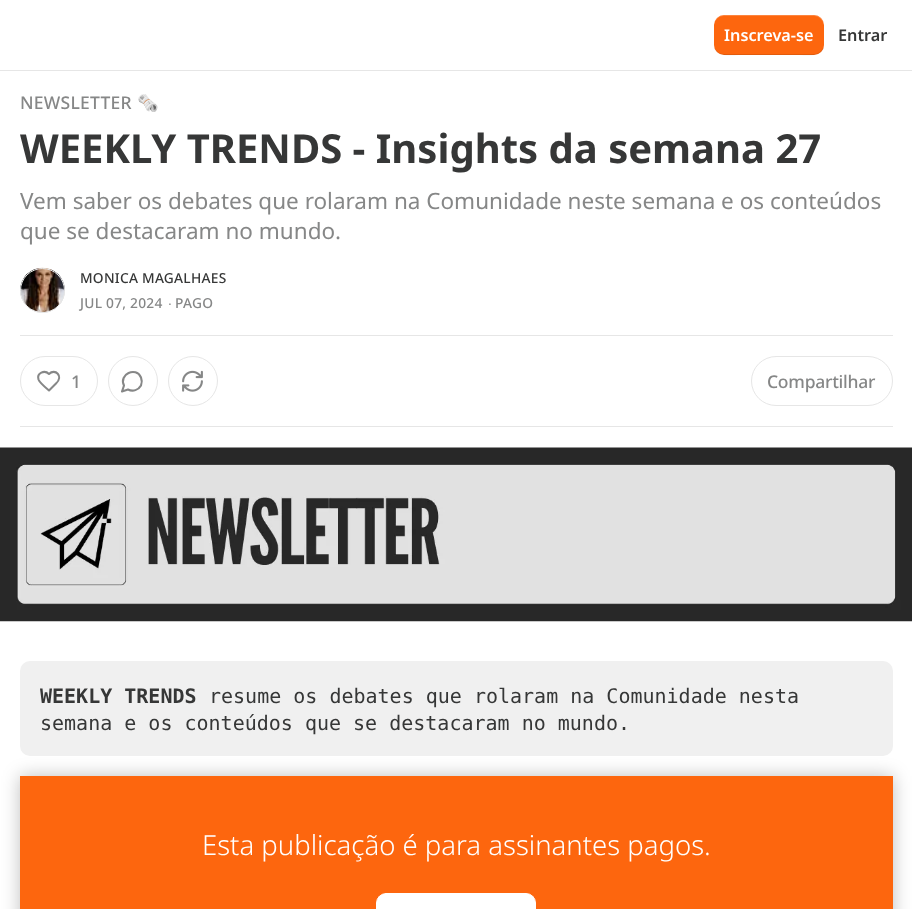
async function draw(canvas) {
  canvas.width = 912
  canvas.height = 909
  const ctx = canvas.getContext('2d')
  ctx.miterLimit = 4
  ctx.fontKerning = 'normal'
  async function loadImage(src) {
    const img = new Image()
    img.src = src
    await img.decode()
    return img
  }

  ctx.fillStyle = '#fff'
  ctx.fillRect(0, 0, 912, 909)
  ctx.fillStyle = '#e6e6e6'
  ctx.fillRect(0, 70, 912, 1)
  ctx.fillStyle = '#fd660e'
  ctx.beginPath()
  ctx.roundRect(714, 15, 110, 40, 10)
  ctx.fill()
  ctx.fillStyle = '#0000001a'
  ctx.beginPath()
  ctx.moveTo(714, 44)
  ctx.bezierCurveTo(714, 58, 729, 55, 739, 55)
  ctx.lineTo(799, 55)
  ctx.bezierCurveTo(809, 55, 824, 58, 824, 44)
  ctx.bezierCurveTo(824, 49, 819, 54, 814, 54)
  ctx.lineTo(724, 54)
  ctx.bezierCurveTo(718, 54, 714, 49, 714, 44)
  ctx.closePath()
  ctx.fill()
  ctx.fillStyle = '#ffffff33'
  ctx.beginPath()
  ctx.moveTo(724, 16)
  ctx.lineTo(814, 16)
  ctx.bezierCurveTo(819, 16, 824, 21, 824, 26)
  ctx.bezierCurveTo(824, 12, 809, 15, 799, 15)
  ctx.lineTo(739, 15)
  ctx.bezierCurveTo(729, 15, 714, 12, 714, 26)
  ctx.bezierCurveTo(714, 21, 718, 16, 724, 16)
  ctx.closePath()
  ctx.fill()
  ctx.font = '600 16.25px Noto Sans'
  ctx.fillStyle = '#fff'
  ctx.fillText('Inscreva-se', 724, 41)
  ctx.fillStyle = '#363737'
  ctx.fillText('Entrar', 838, 41)
  ctx.letterSpacing = '0.25px'
  ctx.font = '500 17.5px Noto Sans'
  ctx.fillStyle = '#868787'
  ctx.fillText('NEWSLETTER', 20, 109)
  ctx.font = '17.5px Noto Color Emoji'
  ctx.fillText('🗞️', 137, 109)
  ctx.letterSpacing = '0px'
  ctx.font = 'bold 40px Noto Sans'
  ctx.fillStyle = '#363737'
  ctx.fillText('WEEKLY TRENDS - Insights da semana 27', 20, 163)
  ctx.font = '22.5px Noto Sans'
  ctx.fillStyle = '#868787'
  ctx.fillText('Vem saber os debates que rolaram na Comunidade neste semana e os conteúdos', 20, 209)
  ctx.fillText('que se destacaram no mundo.', 20, 239)
  ctx.beginPath()
  ctx.arc(42.5, 290.5, 22, 0, 2 * Math.PI)
  ctx.strokeStyle = '#e6e6e6'
  ctx.stroke()
  ctx.drawImage(await loadImage('image0.png'), 20, 267, 45, 46)
  ctx.beginPath()
  ctx.arc(42.5, 290.5, 22, 0, 2 * Math.PI)
  ctx.stroke()
  ctx.letterSpacing = '0.25px'
  ctx.font = '500 13.75px Noto Sans'
  ctx.fillStyle = '#363737'
  ctx.fillText('MONICA MAGALHAES', 80, 283)
  ctx.fillStyle = '#868787'
  ctx.fillText('JUL 07, 2024', 80, 308)
  ctx.font = '13.75px Liberation Sans'
  ctx.fillText('∙', 168, 308)
  ctx.font = '500 13.75px Noto Sans'
  ctx.fillText('PAGO', 175, 308)
  ctx.fillStyle = '#e6e6e6'
  ctx.fillRect(20, 335, 873, 1)
  ctx.fillRect(20, 426, 873, 1)
  ctx.beginPath()
  ctx.roundRect(20.5, 356.5, 77, 49, 24.5)
  ctx.stroke()
  ctx.beginPath()
  ctx.moveTo(56, 383.5)
  ctx.bezierCurveTo(64, 376, 55, 368, 49, 374)
  ctx.bezierCurveTo(44.5, 369.5, 36.5, 373, 38.5, 379.5)
  ctx.bezierCurveTo(39.5, 382.5, 46, 388, 49, 390.5)
  ctx.closePath()
  ctx.strokeStyle = '#868787'
  ctx.lineWidth = 2.1
  ctx.lineCap = 'round'
  ctx.lineJoin = 'round'
  ctx.stroke()
  ctx.letterSpacing = '-0.25px'
  ctx.font = '500 17.5px Noto Sans'
  ctx.fillStyle = '#868787'
  ctx.fillText('1', 71, 388)
  ctx.beginPath()
  ctx.arc(133, 381, 24.5, 0, 2 * Math.PI)
  ctx.strokeStyle = '#e6e6e6'
  ctx.lineWidth = 1
  ctx.stroke()
  ctx.beginPath()
  ctx.moveTo(128, 389.5)
  ctx.bezierCurveTo(133, 392, 138.5, 390, 141, 385.5)
  ctx.bezierCurveTo(142, 383, 142, 380, 141, 377.5)
  ctx.bezierCurveTo(136, 366, 118.5, 374.5, 124, 385.5)
  ctx.lineTo(122, 391.5)
  ctx.closePath()
  ctx.strokeStyle = '#868787'
  ctx.lineWidth = 2.1
  ctx.stroke()
  ctx.beginPath()
  ctx.arc(193, 381, 24.5, 0, 2 * Math.PI)
  ctx.strokeStyle = '#e6e6e6'
  ctx.lineWidth = 1
  ctx.stroke()
  ctx.drawImage(await loadImage('image1.png'), 182, 370, 21, 22)
  ctx.beginPath()
  ctx.roundRect(751.5, 356.5, 141, 49, 24.5)
  ctx.lineJoin = 'miter'
  ctx.stroke()
  ctx.fillText('Compartilhar', 767, 388)
  ctx.drawImage(await loadImage('image2.png'), 0, 447, 912, 175)
  ctx.fillStyle = '#f0f0f0'
  ctx.beginPath()
  ctx.roundRect(20, 661, 873, 95, 10)
  ctx.fill()
  ctx.letterSpacing = '0px'
  ctx.font = 'bold 20px DejaVu Sans Mono'
  ctx.fillStyle = '#363737'
  ctx.fillText('WEEKLY TRENDS', 40, 703)
  ctx.font = '20px DejaVu Sans Mono'
  ctx.fillText('resume os debates que rolaram na Comunidade nesta', 209, 703)
  ctx.fillText('semana e os conteúdos que se destacaram no mundo.', 40, 730)
  ctx.fillStyle = '#fd660e'
  ctx.fillRect(20, 776, 873, 133)
  ctx.fillStyle = '#fff'
  ctx.beginPath()
  ctx.roundRect(376.5, 893.5, 159, 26, 9.5)
  ctx.fill()
  ctx.strokeStyle = '#fff'
  ctx.stroke()
  ctx.save()
  ctx.beginPath()
  ctx.moveTo(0, 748)
  ctx.lineTo(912, 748)
  ctx.lineTo(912, 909)
  ctx.lineTo(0, 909)
  ctx.closePath()
  ctx.moveTo(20, 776)
  ctx.lineTo(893, 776)
  ctx.lineTo(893, 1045)
  ctx.lineTo(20, 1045)
  ctx.closePath()
  ctx.clip('evenodd')
  ctx.fillStyle = '#00000040'
  ctx.filter = 'blur(9px)'
  ctx.beginPath()
  ctx.rect(20, 776, 873, 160)
  ctx.fill()
  ctx.filter = 'none'
  ctx.restore()
  ctx.font = '300 27.5px Noto Sans'
  ctx.fillText('Esta publicação é para assinantes pagos.', 202, 855)
}

draw(document.querySelector('canvas'))
